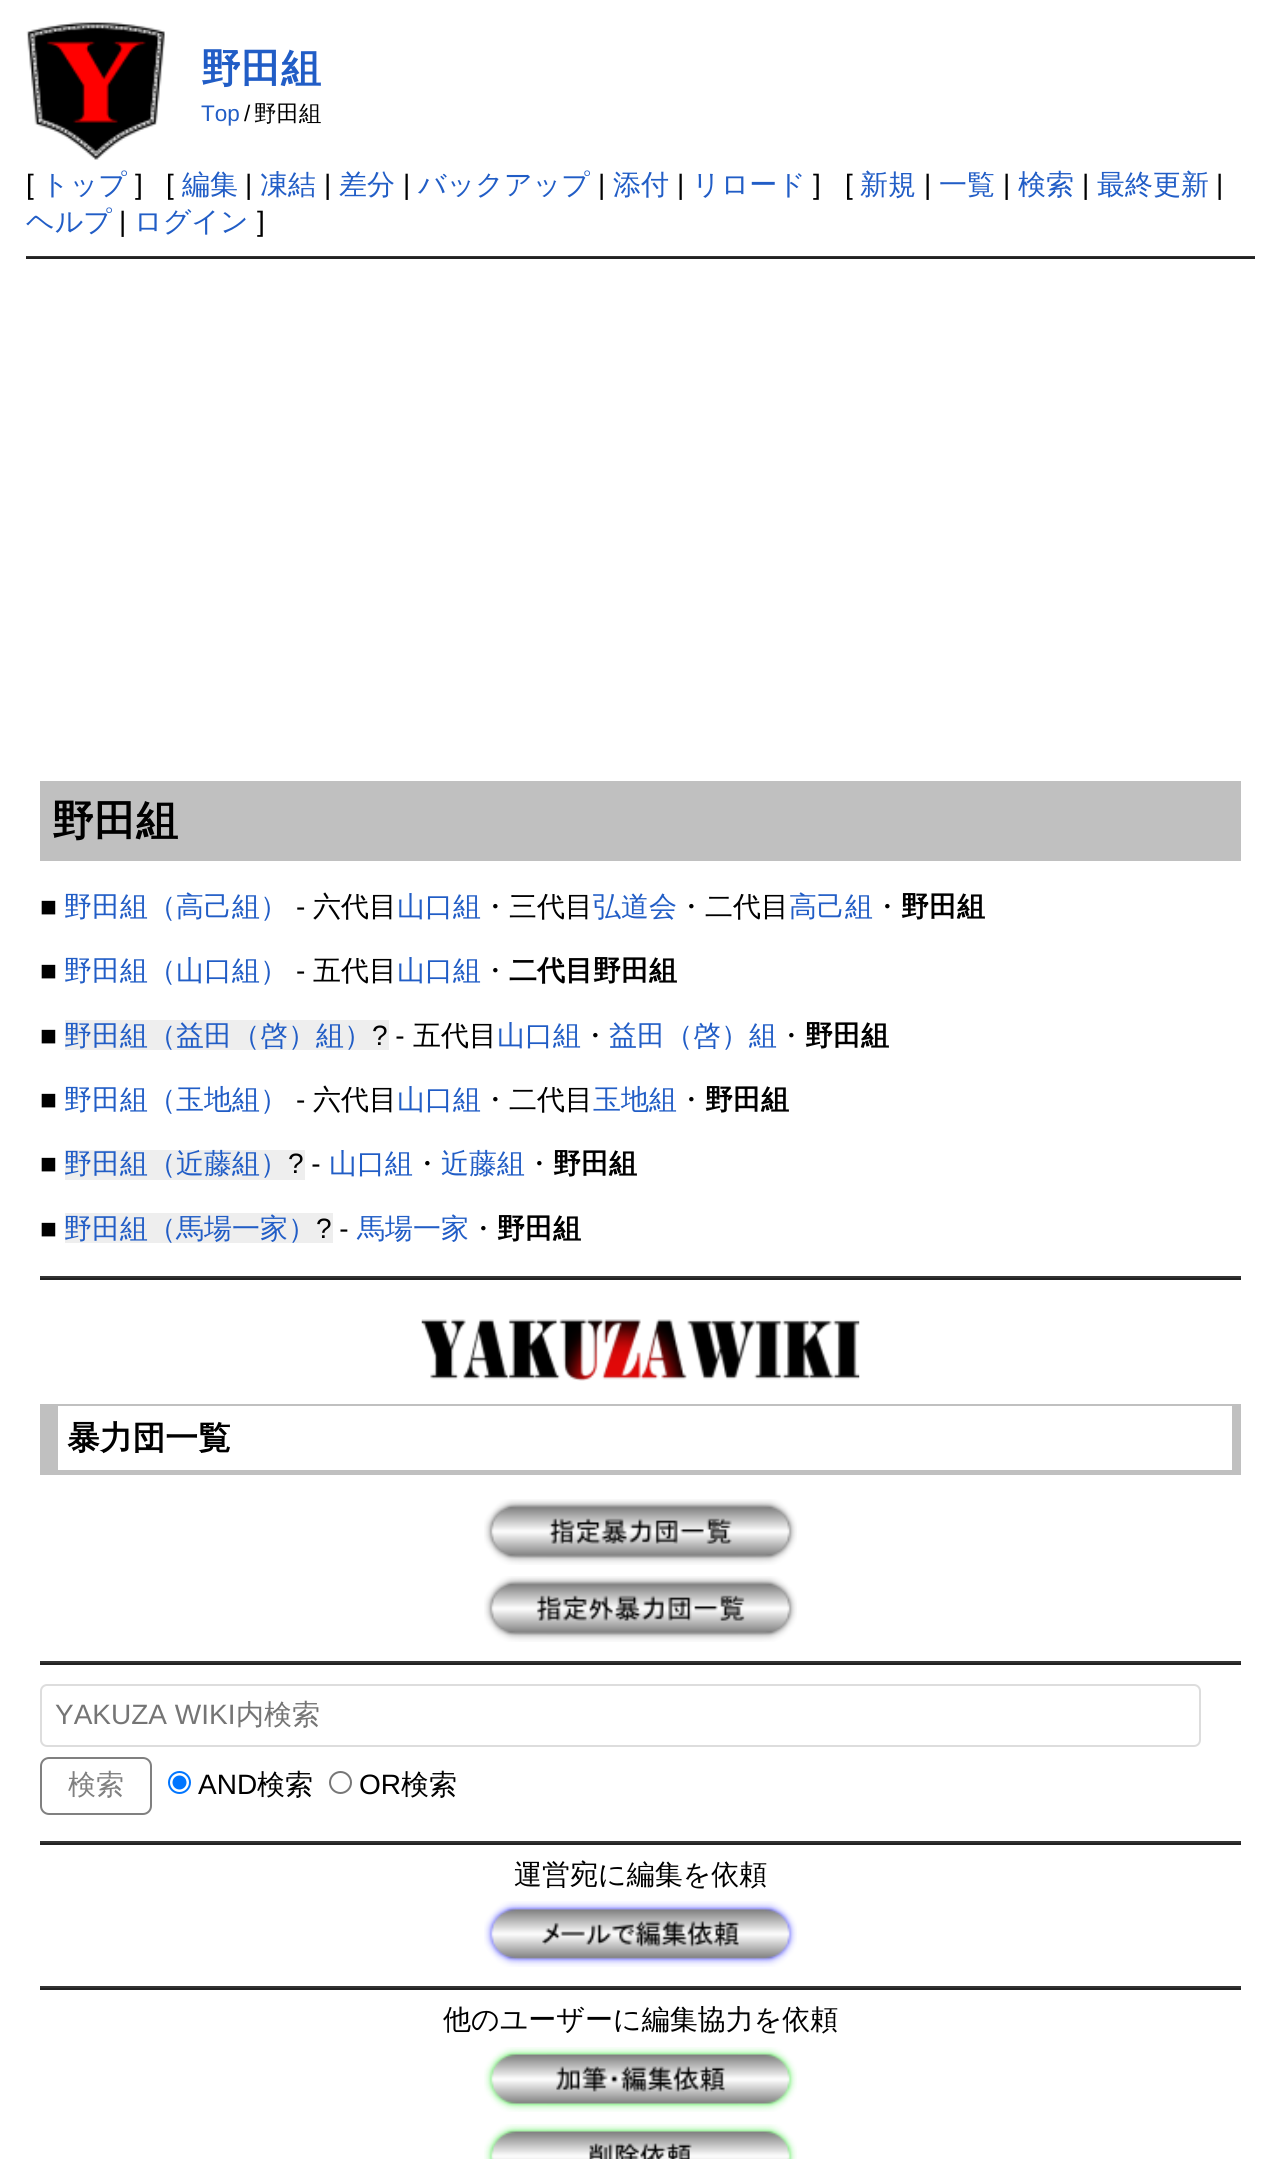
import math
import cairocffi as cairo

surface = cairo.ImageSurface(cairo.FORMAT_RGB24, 1280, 2159)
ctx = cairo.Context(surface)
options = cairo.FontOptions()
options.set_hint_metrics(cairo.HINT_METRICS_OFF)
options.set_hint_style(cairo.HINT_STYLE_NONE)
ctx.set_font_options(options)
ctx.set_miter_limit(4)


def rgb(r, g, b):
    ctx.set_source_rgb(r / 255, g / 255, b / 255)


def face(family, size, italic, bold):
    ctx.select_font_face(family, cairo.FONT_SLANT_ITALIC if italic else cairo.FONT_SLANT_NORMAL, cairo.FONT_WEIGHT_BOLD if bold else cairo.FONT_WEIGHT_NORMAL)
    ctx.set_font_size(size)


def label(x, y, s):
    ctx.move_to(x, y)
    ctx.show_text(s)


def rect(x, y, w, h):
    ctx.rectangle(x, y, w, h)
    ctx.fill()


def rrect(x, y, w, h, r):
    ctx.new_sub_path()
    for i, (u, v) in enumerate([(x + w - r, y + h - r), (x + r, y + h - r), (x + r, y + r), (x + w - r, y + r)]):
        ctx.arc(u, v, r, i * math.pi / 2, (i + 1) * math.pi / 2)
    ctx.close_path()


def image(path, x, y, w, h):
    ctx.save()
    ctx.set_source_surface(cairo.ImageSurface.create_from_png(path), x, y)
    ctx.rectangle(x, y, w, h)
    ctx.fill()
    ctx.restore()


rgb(255, 255, 255)
ctx.paint()
image('image0.png', 26, 22, 139, 138)
face('WenQuanYi Zen Hei', 40, 0, 1)
rgb(33, 93, 198)
label(201, 82, '野田組')
face('Liberation Sans', 22.5, 0, 0)
label(201, 121, 'Top')
rgb(0, 0, 0)
label(244, 121, '/')
face('WenQuanYi Zen Hei Medium', 22.5, 0, 0)
label(254, 121, '野田組')
face('Liberation Sans', 28, 0, 0)
label(26, 194, '[')
face('WenQuanYi Zen Hei Medium', 28, 0, 0)
rgb(33, 93, 198)
label(41, 194, 'トップ')
face('Liberation Sans', 28, 0, 0)
rgb(0, 0, 0)
label(135, 194, ']')
label(166, 194, '[')
face('WenQuanYi Zen Hei Medium', 28, 0, 0)
rgb(33, 93, 198)
label(182, 194, '編集')
face('Liberation Sans', 28, 0, 0)
rgb(0, 0, 0)
label(245, 194, '|')
face('WenQuanYi Zen Hei Medium', 28, 0, 0)
rgb(33, 93, 198)
label(260, 194, '凍結')
face('Liberation Sans', 28, 0, 0)
rgb(0, 0, 0)
label(324, 194, '|')
face('WenQuanYi Zen Hei Medium', 28, 0, 0)
rgb(33, 93, 198)
label(339, 194, '差分')
face('Liberation Sans', 28, 0, 0)
rgb(0, 0, 0)
label(403, 194, '|')
face('WenQuanYi Zen Hei Medium', 28, 0, 0)
rgb(33, 93, 198)
label(418, 194, 'バックアップ')
face('Liberation Sans', 28, 0, 0)
rgb(0, 0, 0)
label(598, 194, '|')
face('WenQuanYi Zen Hei Medium', 28, 0, 0)
rgb(33, 93, 198)
label(613, 194, '添付')
face('Liberation Sans', 28, 0, 0)
rgb(0, 0, 0)
label(677, 194, '|')
face('WenQuanYi Zen Hei Medium', 28, 0, 0)
rgb(33, 93, 198)
label(692, 194, 'リロード')
face('Liberation Sans', 28, 0, 0)
rgb(0, 0, 0)
label(813, 194, ']')
label(845, 194, '[')
face('WenQuanYi Zen Hei Medium', 28, 0, 0)
rgb(33, 93, 198)
label(860, 194, '新規')
face('Liberation Sans', 28, 0, 0)
rgb(0, 0, 0)
label(924, 194, '|')
face('WenQuanYi Zen Hei Medium', 28, 0, 0)
rgb(33, 93, 198)
label(939, 194, '一覧')
face('Liberation Sans', 28, 0, 0)
rgb(0, 0, 0)
label(1003, 194, '|')
face('WenQuanYi Zen Hei Medium', 28, 0, 0)
rgb(33, 93, 198)
label(1018, 194, '検索')
face('Liberation Sans', 28, 0, 0)
rgb(0, 0, 0)
label(1082, 194, '|')
face('WenQuanYi Zen Hei Medium', 28, 0, 0)
rgb(33, 93, 198)
label(1097, 194, '最終更新')
face('Liberation Sans', 28, 0, 0)
rgb(0, 0, 0)
label(1216, 194, '|')
face('WenQuanYi Zen Hei Medium', 28, 0, 0)
rgb(33, 93, 198)
label(26, 231, 'ヘルプ')
face('Liberation Sans', 28, 0, 0)
rgb(0, 0, 0)
label(119, 231, '|')
face('WenQuanYi Zen Hei Medium', 28, 0, 0)
rgb(33, 93, 198)
label(134, 231, 'ログイン')
face('Liberation Sans', 28, 0, 0)
rgb(0, 0, 0)
label(257, 231, ']')
rgb(51, 51, 51)
rect(26, 256, 1229, 1)
rgb(34, 34, 34)
rect(26, 257, 1229, 2)
rgb(192, 192, 192)
rect(40, 781, 1201, 80)
face('WenQuanYi Zen Hei', 42, 0, 1)
rgb(0, 0, 0)
label(52, 835, '野田組')
face('Liberation Sans', 28, 0, 0)
label(40, 916, '■')
face('WenQuanYi Zen Hei Medium', 28, 0, 0)
rgb(33, 93, 198)
label(64, 916, '野田組（高己組）')
face('Liberation Sans', 28, 0, 0)
rgb(0, 0, 0)
label(296, 916, '-')
face('WenQuanYi Zen Hei Medium', 28, 0, 0)
label(313, 916, '六代目')
rgb(33, 93, 198)
label(397, 916, '山口組')
rgb(0, 0, 0)
label(481, 916, '・三代目')
rgb(33, 93, 198)
label(593, 916, '弘道会')
rgb(0, 0, 0)
label(677, 916, '・二代目')
rgb(33, 93, 198)
label(789, 916, '高己組')
rgb(0, 0, 0)
label(873, 916, '・')
face('WenQuanYi Zen Hei', 28, 0, 1)
label(901, 916, '野田組')
face('Liberation Sans', 28, 0, 0)
label(40, 980, '■')
face('WenQuanYi Zen Hei Medium', 28, 0, 0)
rgb(33, 93, 198)
label(64, 980, '野田組（山口組）')
face('Liberation Sans', 28, 0, 0)
rgb(0, 0, 0)
label(296, 980, '-')
face('WenQuanYi Zen Hei Medium', 28, 0, 0)
label(313, 980, '五代目')
rgb(33, 93, 198)
label(397, 980, '山口組')
rgb(0, 0, 0)
label(481, 980, '・')
face('WenQuanYi Zen Hei', 28, 0, 1)
label(509, 980, '二代目野田組')
face('Liberation Sans', 28, 0, 0)
label(40, 1045, '■')
rgb(238, 238, 238)
rect(65, 1020, 324, 30)
face('WenQuanYi Zen Hei Medium', 28, 0, 0)
rgb(33, 93, 198)
label(64, 1045, '野田組（益田（啓）組）')
face('Liberation Sans', 28, 0, 0)
rgb(0, 0, 0)
label(372, 1045, '? -')
face('WenQuanYi Zen Hei Medium', 28, 0, 0)
label(413, 1045, '五代目')
rgb(33, 93, 198)
label(497, 1045, '山口組')
rgb(0, 0, 0)
label(581, 1045, '・')
rgb(33, 93, 198)
label(609, 1045, '益田（啓）組')
rgb(0, 0, 0)
label(777, 1045, '・')
face('WenQuanYi Zen Hei', 28, 0, 1)
label(805, 1045, '野田組')
face('Liberation Sans', 28, 0, 0)
label(40, 1109, '■')
face('WenQuanYi Zen Hei Medium', 28, 0, 0)
rgb(33, 93, 198)
label(64, 1109, '野田組（玉地組）')
face('Liberation Sans', 28, 0, 0)
rgb(0, 0, 0)
label(296, 1109, '-')
face('WenQuanYi Zen Hei Medium', 28, 0, 0)
label(313, 1109, '六代目')
rgb(33, 93, 198)
label(397, 1109, '山口組')
rgb(0, 0, 0)
label(481, 1109, '・二代目')
rgb(33, 93, 198)
label(593, 1109, '玉地組')
rgb(0, 0, 0)
label(677, 1109, '・')
face('WenQuanYi Zen Hei', 28, 0, 1)
label(705, 1109, '野田組')
face('Liberation Sans', 28, 0, 0)
label(40, 1173, '■')
rgb(238, 238, 238)
rect(65, 1150, 240, 30)
face('WenQuanYi Zen Hei Medium', 28, 0, 0)
rgb(33, 93, 198)
label(64, 1173, '野田組（近藤組）')
face('Liberation Sans', 28, 0, 0)
rgb(0, 0, 0)
label(288, 1173, '? -')
face('WenQuanYi Zen Hei Medium', 28, 0, 0)
rgb(33, 93, 198)
label(329, 1173, '山口組')
rgb(0, 0, 0)
label(413, 1173, '・')
rgb(33, 93, 198)
label(441, 1173, '近藤組')
rgb(0, 0, 0)
label(525, 1173, '・')
face('WenQuanYi Zen Hei', 28, 0, 1)
label(553, 1173, '野田組')
face('Liberation Sans', 28, 0, 0)
label(40, 1238, '■')
rgb(238, 238, 238)
rect(65, 1213, 268, 30)
face('WenQuanYi Zen Hei Medium', 28, 0, 0)
rgb(33, 93, 198)
label(64, 1238, '野田組（馬場一家）')
face('Liberation Sans', 28, 0, 0)
rgb(0, 0, 0)
label(316, 1238, '? -')
face('WenQuanYi Zen Hei Medium', 28, 0, 0)
rgb(33, 93, 198)
label(357, 1238, '馬場一家')
rgb(0, 0, 0)
label(469, 1238, '・')
face('WenQuanYi Zen Hei', 28, 0, 1)
label(497, 1238, '野田組')
rgb(51, 51, 51)
rect(40, 1276, 1201, 2)
rgb(34, 34, 34)
rect(40, 1278, 1201, 2)
image('image1.png', 421, 1319, 439, 62)
rgb(192, 192, 192)
rect(58, 1404, 1174, 2)
rect(1232, 1404, 9, 66)
rect(58, 1470, 1183, 5)
rect(40, 1404, 18, 71)
face('WenQuanYi Zen Hei', 32.75, 0, 1)
rgb(0, 0, 0)
label(67, 1449, '暴力団一覧')
image('image2.png', 484, 1499, 313, 66)
image('image3.png', 484, 1576, 313, 66)
rgb(51, 51, 51)
rect(40, 1661, 1201, 2)
rgb(34, 34, 34)
rect(40, 1663, 1201, 2)
rrect(41, 1685, 1159, 61, 6)
rgb(221, 221, 221)
ctx.stroke()
face('Liberation Sans', 28, 0, 0)
rgb(117, 117, 117)
label(55, 1724, 'YAKUZA WIKI')
face('WenQuanYi Zen Hei Medium', 28, 0, 0)
label(236, 1724, '内検索')
rrect(41, 1758, 110, 56, 8)
rgb(128, 128, 128)
ctx.stroke()
label(68, 1794, '検索')
ctx.new_path()
ctx.arc(179.5, 1782.5, 10.5, 0, 2 * math.pi)
rgb(0, 117, 255)
ctx.stroke()
ctx.arc(179.5, 1782.5, 7, 0, 2 * math.pi)
ctx.fill()
face('Liberation Sans', 28, 0, 0)
rgb(0, 0, 0)
label(198, 1794, 'AND')
face('WenQuanYi Zen Hei Medium', 28, 0, 0)
label(257, 1794, '検索')
ctx.new_path()
ctx.arc(340.5, 1782.5, 10.5, 0, 2 * math.pi)
rgb(118, 118, 118)
ctx.stroke()
face('Liberation Sans', 28, 0, 0)
rgb(0, 0, 0)
label(359, 1794, 'OR')
face('WenQuanYi Zen Hei Medium', 28, 0, 0)
label(401, 1794, '検索')
rgb(51, 51, 51)
rect(40, 1841, 1201, 2)
rgb(34, 34, 34)
rect(40, 1843, 1201, 2)
rgb(0, 0, 0)
label(514, 1884, '運営宛に編集を依頼')
image('image4.png', 484, 1901, 313, 66)
rgb(51, 51, 51)
rect(40, 1986, 1201, 2)
rgb(34, 34, 34)
rect(40, 1988, 1201, 2)
rgb(0, 0, 0)
label(443, 2029, '他のユーザーに編集協力を依頼')
image('image5.png', 484, 2047, 313, 65)
image('image6.png', 484, 2124, 313, 35)
surface.write_to_png('render.png')
